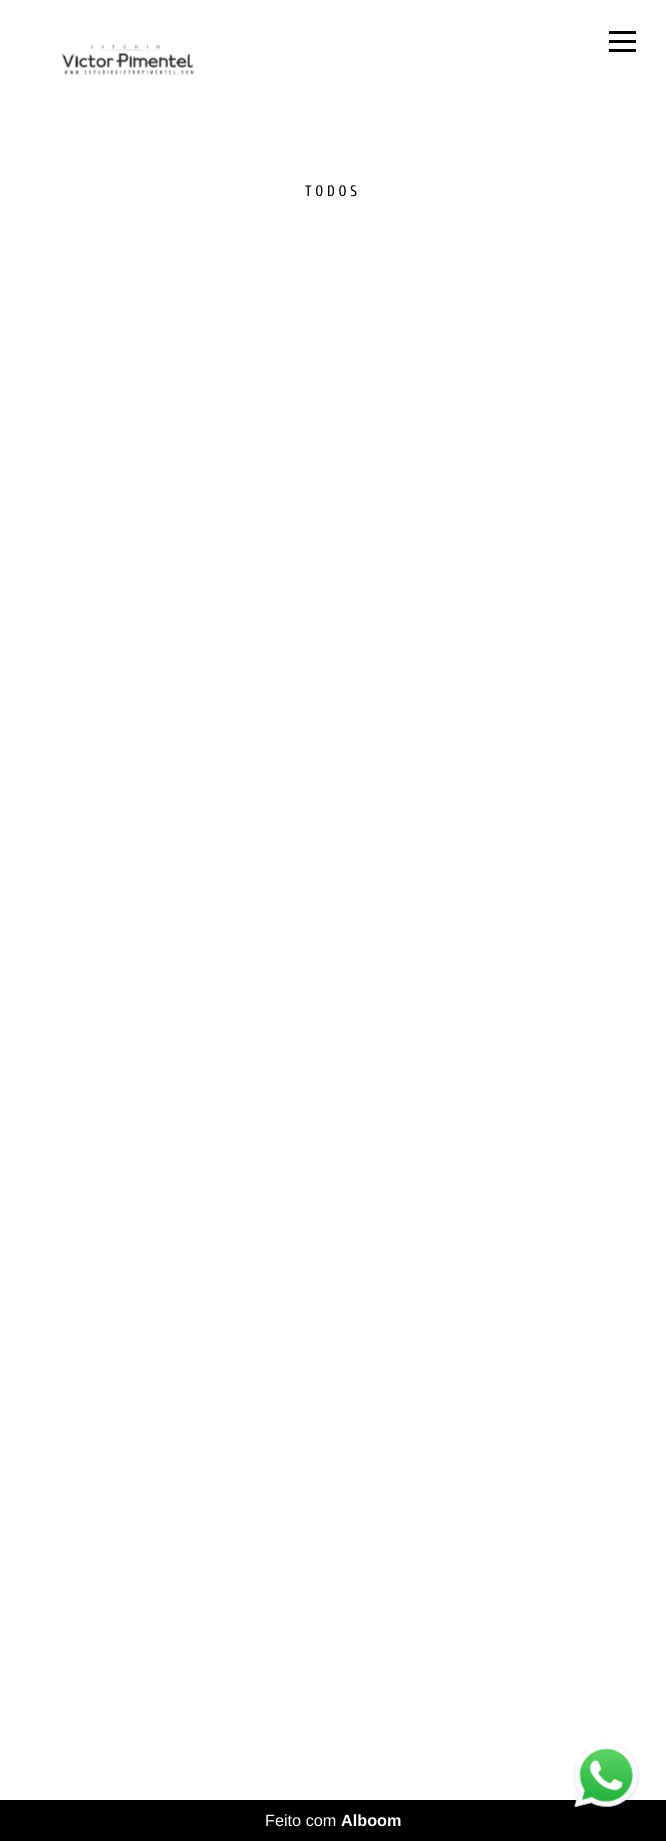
import math
import cairocffi as cairo

surface = cairo.ImageSurface(cairo.FORMAT_RGB24, 666, 1841)
ctx = cairo.Context(surface)
options = cairo.FontOptions()
options.set_hint_metrics(cairo.HINT_METRICS_OFF)
options.set_hint_style(cairo.HINT_STYLE_NONE)
ctx.set_font_options(options)
ctx.set_miter_limit(4)


def rgb(r, g, b):
    ctx.set_source_rgb(r / 255, g / 255, b / 255)


def face(family, size, italic, bold):
    ctx.select_font_face(family, cairo.FONT_SLANT_ITALIC if italic else cairo.FONT_SLANT_NORMAL, cairo.FONT_WEIGHT_BOLD if bold else cairo.FONT_WEIGHT_NORMAL)
    ctx.set_font_size(size)


def label(x, y, s):
    ctx.move_to(x, y)
    ctx.show_text(s)


def tracked(x, y, s, letter, word):
    ctx.move_to(x, y)
    for ch in s:
        ctx.show_text(ch)
        ctx.rel_move_to(letter + word * (ch == ' '), 0)


def rect(x, y, w, h):
    ctx.rectangle(x, y, w, h)
    ctx.fill()


def image(path, x, y, w, h):
    ctx.save()
    ctx.set_source_surface(cairo.ImageSurface.create_from_png(path), x, y)
    ctx.rectangle(x, y, w, h)
    ctx.fill()
    ctx.restore()


rgb(255, 255, 255)
ctx.paint()
rgb(0, 0, 0)
rect(609, 31, 27, 3)
rect(609, 40, 27, 3)
rect(609, 49, 27, 3)
image('image0.png', 61, 44, 133, 31)
face('Cuprum', 15, 0, 0)
tracked(305, 196, 'TODOS', 3.75, 0)
rect(0, 1800, 666, 41)
image('image1.png', 573, 1743, 67, 65)
face('Liberation Sans', 16.25, 0, 0)
rgb(255, 255, 255)
label(265, 1826, 'Feito com')
face('Liberation Sans', 16.25, 0, 1)
label(341, 1826, 'Alboom')
surface.write_to_png('render.png')
